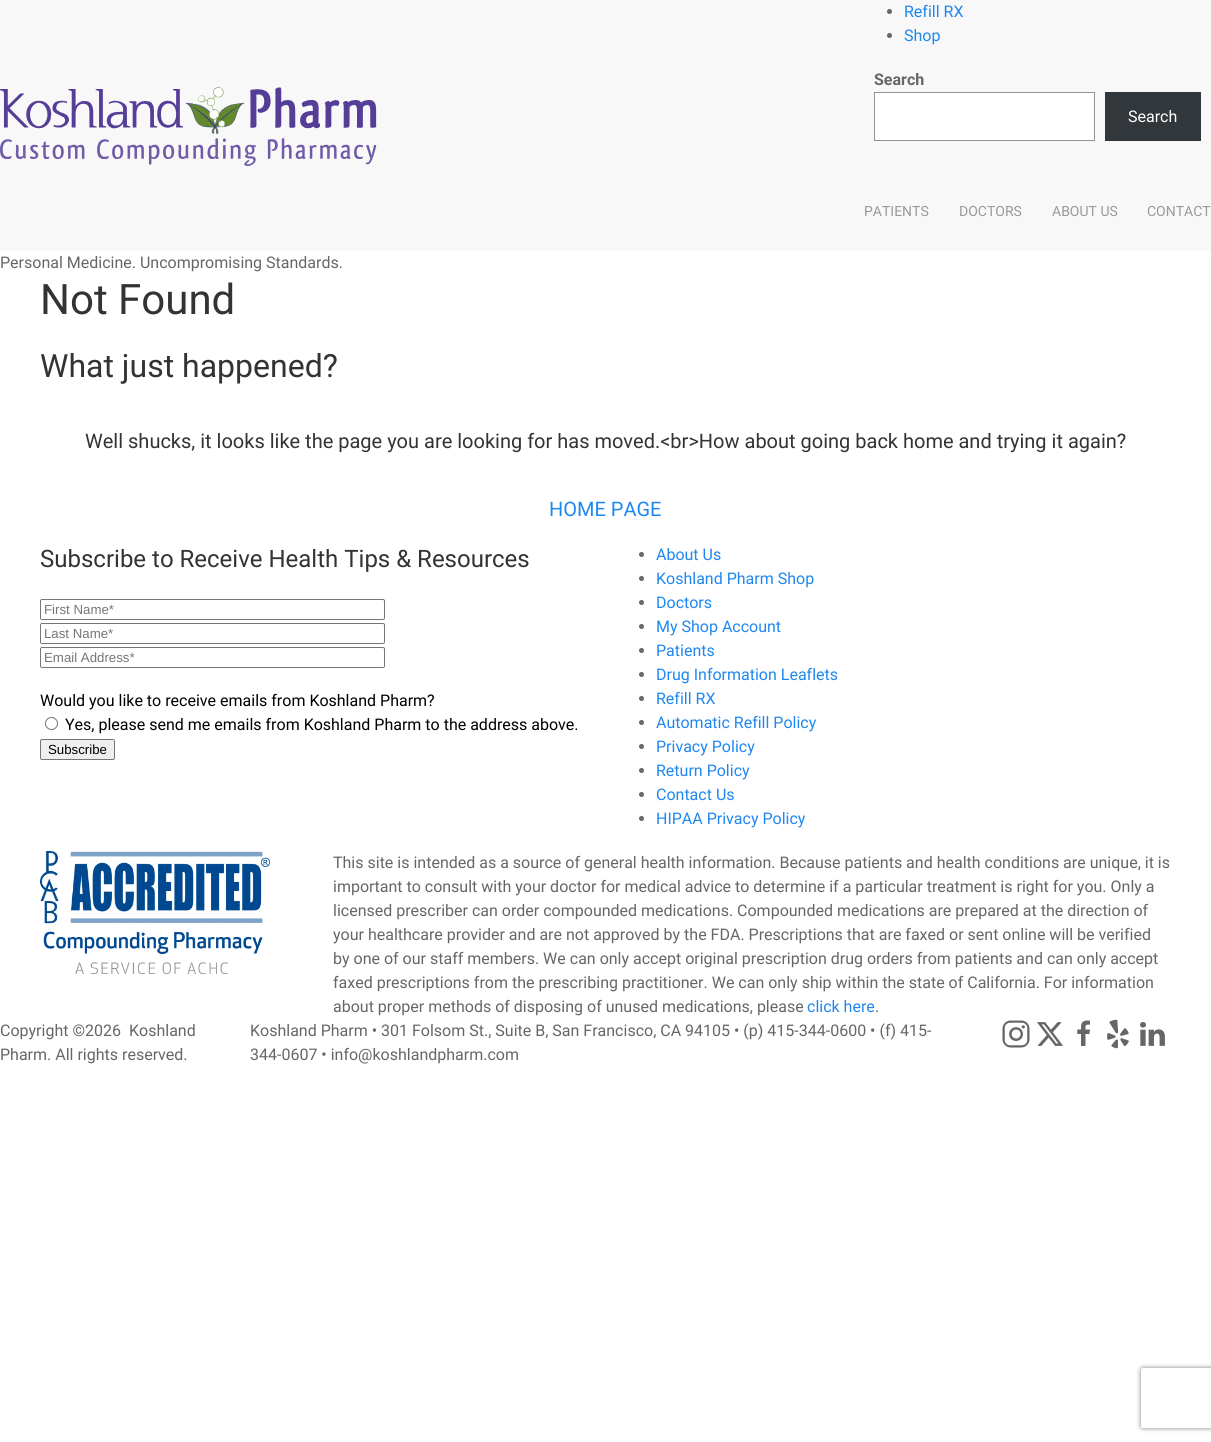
import math
import cairocffi as cairo

surface = cairo.ImageSurface(cairo.FORMAT_RGB24, 1211, 1442)
ctx = cairo.Context(surface)
options = cairo.FontOptions()
options.set_hint_metrics(cairo.HINT_METRICS_OFF)
options.set_hint_style(cairo.HINT_STYLE_NONE)
ctx.set_font_options(options)
ctx.set_miter_limit(4)


def rgb(r, g, b):
    ctx.set_source_rgb(r / 255, g / 255, b / 255)


def face(family, size, italic, bold):
    ctx.select_font_face(family, cairo.FONT_SLANT_ITALIC if italic else cairo.FONT_SLANT_NORMAL, cairo.FONT_WEIGHT_BOLD if bold else cairo.FONT_WEIGHT_NORMAL)
    ctx.set_font_size(size)


def label(x, y, s):
    ctx.move_to(x, y)
    ctx.show_text(s)


def rect(x, y, w, h):
    ctx.rectangle(x, y, w, h)
    ctx.fill()


def rrect(x, y, w, h, r):
    ctx.new_sub_path()
    for i, (u, v) in enumerate([(x + w - r, y + h - r), (x + r, y + h - r), (x + r, y + r), (x + w - r, y + r)]):
        ctx.arc(u, v, r, i * math.pi / 2, (i + 1) * math.pi / 2)
    ctx.close_path()


def soft_shadow(x, y, w, h, r, blur, alpha):
    ctx.push_group_with_content(cairo.CONTENT_ALPHA)
    ctx.set_operator(cairo.OPERATOR_SOURCE)
    for i in range(15, -16, -2):
        e = blur * i / 6
        if min(w, h) + 2 * e > 0:
            ctx.set_source_rgba(0, 0, 0, alpha * math.erfc((i - 1) / 8.5) / 2)
            rrect(x - e, y - e, w + 2 * e, h + 2 * e, max(0, min(r + e + blur * .6, min(w, h) / 2 + e)))
            ctx.fill()
    ctx.mask(ctx.pop_group())


def image(path, x, y, w, h):
    ctx.save()
    ctx.set_source_surface(cairo.ImageSurface.create_from_png(path), x, y)
    ctx.rectangle(x, y, w, h)
    ctx.fill()
    ctx.restore()


rgb(255, 255, 255)
ctx.paint()
rgb(248, 248, 248)
rect(0, 0, 1211, 251)
image('image0.png', 0, 87, 377, 79)
rgb(102, 102, 102)
ctx.arc(889.5, 11.5, 2.5, 0, 2 * math.pi)
ctx.fill()
face('Roboto', 16, 0, 0)
rgb(30, 135, 240)
label(904, 17, 'Refill RX')
rgb(102, 102, 102)
ctx.new_path()
ctx.arc(889.5, 35.5, 2.5, 0, 2 * math.pi)
ctx.fill()
rgb(30, 135, 240)
label(904, 41, 'Shop')
face('Roboto', 16, 0, 1)
rgb(102, 102, 102)
label(874, 85, 'Search')
rgb(255, 255, 255)
ctx.rectangle(874.5, 92.5, 220, 48)
ctx.fill_preserve()
rgb(148, 148, 148)
ctx.set_line_width(1)
ctx.stroke()
rgb(50, 55, 60)
rect(1105, 92, 96, 49)
face('Roboto', 16, 0, 0)
rgb(255, 255, 255)
label(1128, 122, 'Search')
face('Roboto', 14, 0, 0)
rgb(153, 153, 153)
label(864, 216, 'PATIENTS')
label(959, 216, 'DOCTORS')
label(1052, 216, 'ABOUT US')
label(1147, 216, 'CONTACT')
face('Roboto', 16, 0, 0)
rgb(102, 102, 102)
label(0, 268, 'Personal Medicine. Uncompromising Standards.')
face('Roboto', 42, 0, 0)
rgb(51, 51, 51)
label(40, 314, 'Not Found')
face('Roboto', 32, 0, 0)
label(40, 377, 'What just happened?')
face('Roboto', 20, 0, 0)
label(85, 448, 'Well shucks, it looks like the page you are looking for has moved.<br>How about going back home and trying it again?')
rgb(30, 135, 240)
label(549, 516, 'HOME PAGE')
face('Roboto', 24, 0, 0)
rgb(51, 51, 51)
label(40, 567, 'Subscribe to Receive Health Tips & Resources')
rrect(40.5, 599.5, 344, 20, 1.5)
rgb(118, 118, 118)
ctx.stroke()
face('Liberation Sans', 13.25, 0, 0)
rgb(117, 117, 117)
label(44, 614, 'First Name*')
rrect(40.5, 623.5, 344, 20, 1.5)
rgb(118, 118, 118)
ctx.stroke()
rgb(117, 117, 117)
label(44, 638, 'Last Name*')
rrect(40.5, 647.5, 344, 20, 1.5)
rgb(118, 118, 118)
ctx.stroke()
rgb(117, 117, 117)
label(44, 662, 'Email Address*')
face('Roboto', 16, 0, 0)
rgb(0, 0, 0)
label(40, 706, 'Would you like to receive emails from Koshland Pharm?')
ctx.new_path()
ctx.arc(51.5, 723.5, 6, 0, 2 * math.pi)
rgb(118, 118, 118)
ctx.stroke()
rgb(0, 0, 0)
label(65, 730, 'Yes, please send me emails from Koshland Pharm to the address above.')
rgb(239, 239, 239)
rrect(40.5, 739.5, 74, 20, 1.5)
ctx.fill_preserve()
rgb(118, 118, 118)
ctx.stroke()
face('Liberation Sans', 13.25, 0, 0)
rgb(0, 0, 0)
label(48, 754, 'Subscribe')
rgb(102, 102, 102)
ctx.new_path()
ctx.arc(641.5, 554.5, 2.5, 0, 2 * math.pi)
ctx.fill()
face('Roboto', 16, 0, 0)
rgb(30, 135, 240)
label(656, 560, 'About Us')
rgb(102, 102, 102)
ctx.new_path()
ctx.arc(641.5, 578.5, 2.5, 0, 2 * math.pi)
ctx.fill()
rgb(30, 135, 240)
label(656, 584, 'Koshland Pharm Shop')
rgb(102, 102, 102)
ctx.new_path()
ctx.arc(641.5, 602.5, 2.5, 0, 2 * math.pi)
ctx.fill()
rgb(30, 135, 240)
label(656, 608, 'Doctors')
rgb(102, 102, 102)
ctx.new_path()
ctx.arc(641.5, 626.5, 2.5, 0, 2 * math.pi)
ctx.fill()
rgb(30, 135, 240)
label(656, 632, 'My Shop Account')
rgb(102, 102, 102)
ctx.new_path()
ctx.arc(641.5, 650.5, 2.5, 0, 2 * math.pi)
ctx.fill()
rgb(30, 135, 240)
label(656, 656, 'Patients')
rgb(102, 102, 102)
ctx.new_path()
ctx.arc(641.5, 674.5, 2.5, 0, 2 * math.pi)
ctx.fill()
rgb(30, 135, 240)
label(656, 680, 'Drug Information Leaflets')
rgb(102, 102, 102)
ctx.new_path()
ctx.arc(641.5, 698.5, 2.5, 0, 2 * math.pi)
ctx.fill()
rgb(30, 135, 240)
label(656, 704, 'Refill RX')
rgb(102, 102, 102)
ctx.new_path()
ctx.arc(641.5, 722.5, 2.5, 0, 2 * math.pi)
ctx.fill()
rgb(30, 135, 240)
label(656, 728, 'Automatic Refill Policy')
rgb(102, 102, 102)
ctx.new_path()
ctx.arc(641.5, 746.5, 2.5, 0, 2 * math.pi)
ctx.fill()
rgb(30, 135, 240)
label(656, 752, 'Privacy Policy')
rgb(102, 102, 102)
ctx.new_path()
ctx.arc(641.5, 770.5, 2.5, 0, 2 * math.pi)
ctx.fill()
rgb(30, 135, 240)
label(656, 776, 'Return Policy')
rgb(102, 102, 102)
ctx.new_path()
ctx.arc(641.5, 794.5, 2.5, 0, 2 * math.pi)
ctx.fill()
rgb(30, 135, 240)
label(656, 800, 'Contact Us')
rgb(102, 102, 102)
ctx.new_path()
ctx.arc(641.5, 818.5, 2.5, 0, 2 * math.pi)
ctx.fill()
rgb(30, 135, 240)
label(656, 824, 'HIPAA Privacy Policy')
image('image1.png', 40, 851, 230, 124)
rgb(102, 102, 102)
label(333, 868, 'This site is intended as a source of general health information. Because patients and health conditions are unique, it is')
label(333, 892, 'important to consult with your doctor for medical advice to determine if a particular treatment is right for you. Only a')
label(333, 916, 'licensed prescriber can order compounded medications. Compounded medications are prepared at the direction of')
label(333, 940, 'your healthcare provider and are not approved by the FDA. Prescriptions that are faxed or sent online will be verified')
label(333, 964, 'by one of our staff members. We can only accept original prescription drug orders from patients and can only accept')
label(333, 988, 'faxed prescriptions from the prescribing practitioner. We can only ship within the state of California. For information')
label(333, 1012, 'about proper methods of disposing of unused medications, please')
rgb(30, 135, 240)
label(807, 1012, 'click here')
rgb(102, 102, 102)
label(875, 1012, '.')
label(0, 1036, 'Copyright ©2026')
label(129, 1036, 'Koshland')
label(0, 1060, 'Pharm. All rights reserved.')
label(250, 1036, 'Koshland Pharm • 301 Folsom St., Suite B, San Francisco, CA 94105 • (p) 415-344-0600 • (f) 415-')
label(250, 1060, '344-0607 • info@koshlandpharm.com')
image('image2.png', 1002, 1020, 28, 28)
image('image3.png', 1037, 1022, 26, 24)
image('image4.png', 1077, 1020, 13, 26)
image('image5.png', 1107, 1019, 22, 30)
image('image6.png', 1140, 1022, 25, 24)
ctx.save()
ctx.set_fill_rule(cairo.FILL_RULE_EVEN_ODD)
ctx.new_path()
ctx.move_to(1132, 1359)
ctx.line_to(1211, 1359)
ctx.line_to(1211, 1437)
ctx.line_to(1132, 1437)
ctx.close_path()
ctx.move_to(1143, 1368)
ctx.line_to(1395, 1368)
ctx.curve_to(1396, 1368, 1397, 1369, 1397, 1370)
ctx.line_to(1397, 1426)
ctx.curve_to(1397, 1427, 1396, 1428, 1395, 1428)
ctx.line_to(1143, 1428)
ctx.curve_to(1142, 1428, 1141, 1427, 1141, 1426)
ctx.line_to(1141, 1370)
ctx.curve_to(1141, 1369, 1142, 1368, 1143, 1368)
ctx.close_path()
ctx.clip()
rgb(128, 128, 128)
soft_shadow(1141, 1368, 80, 60, 2, 2.5, 1)
ctx.restore()
surface.write_to_png('render.png')
